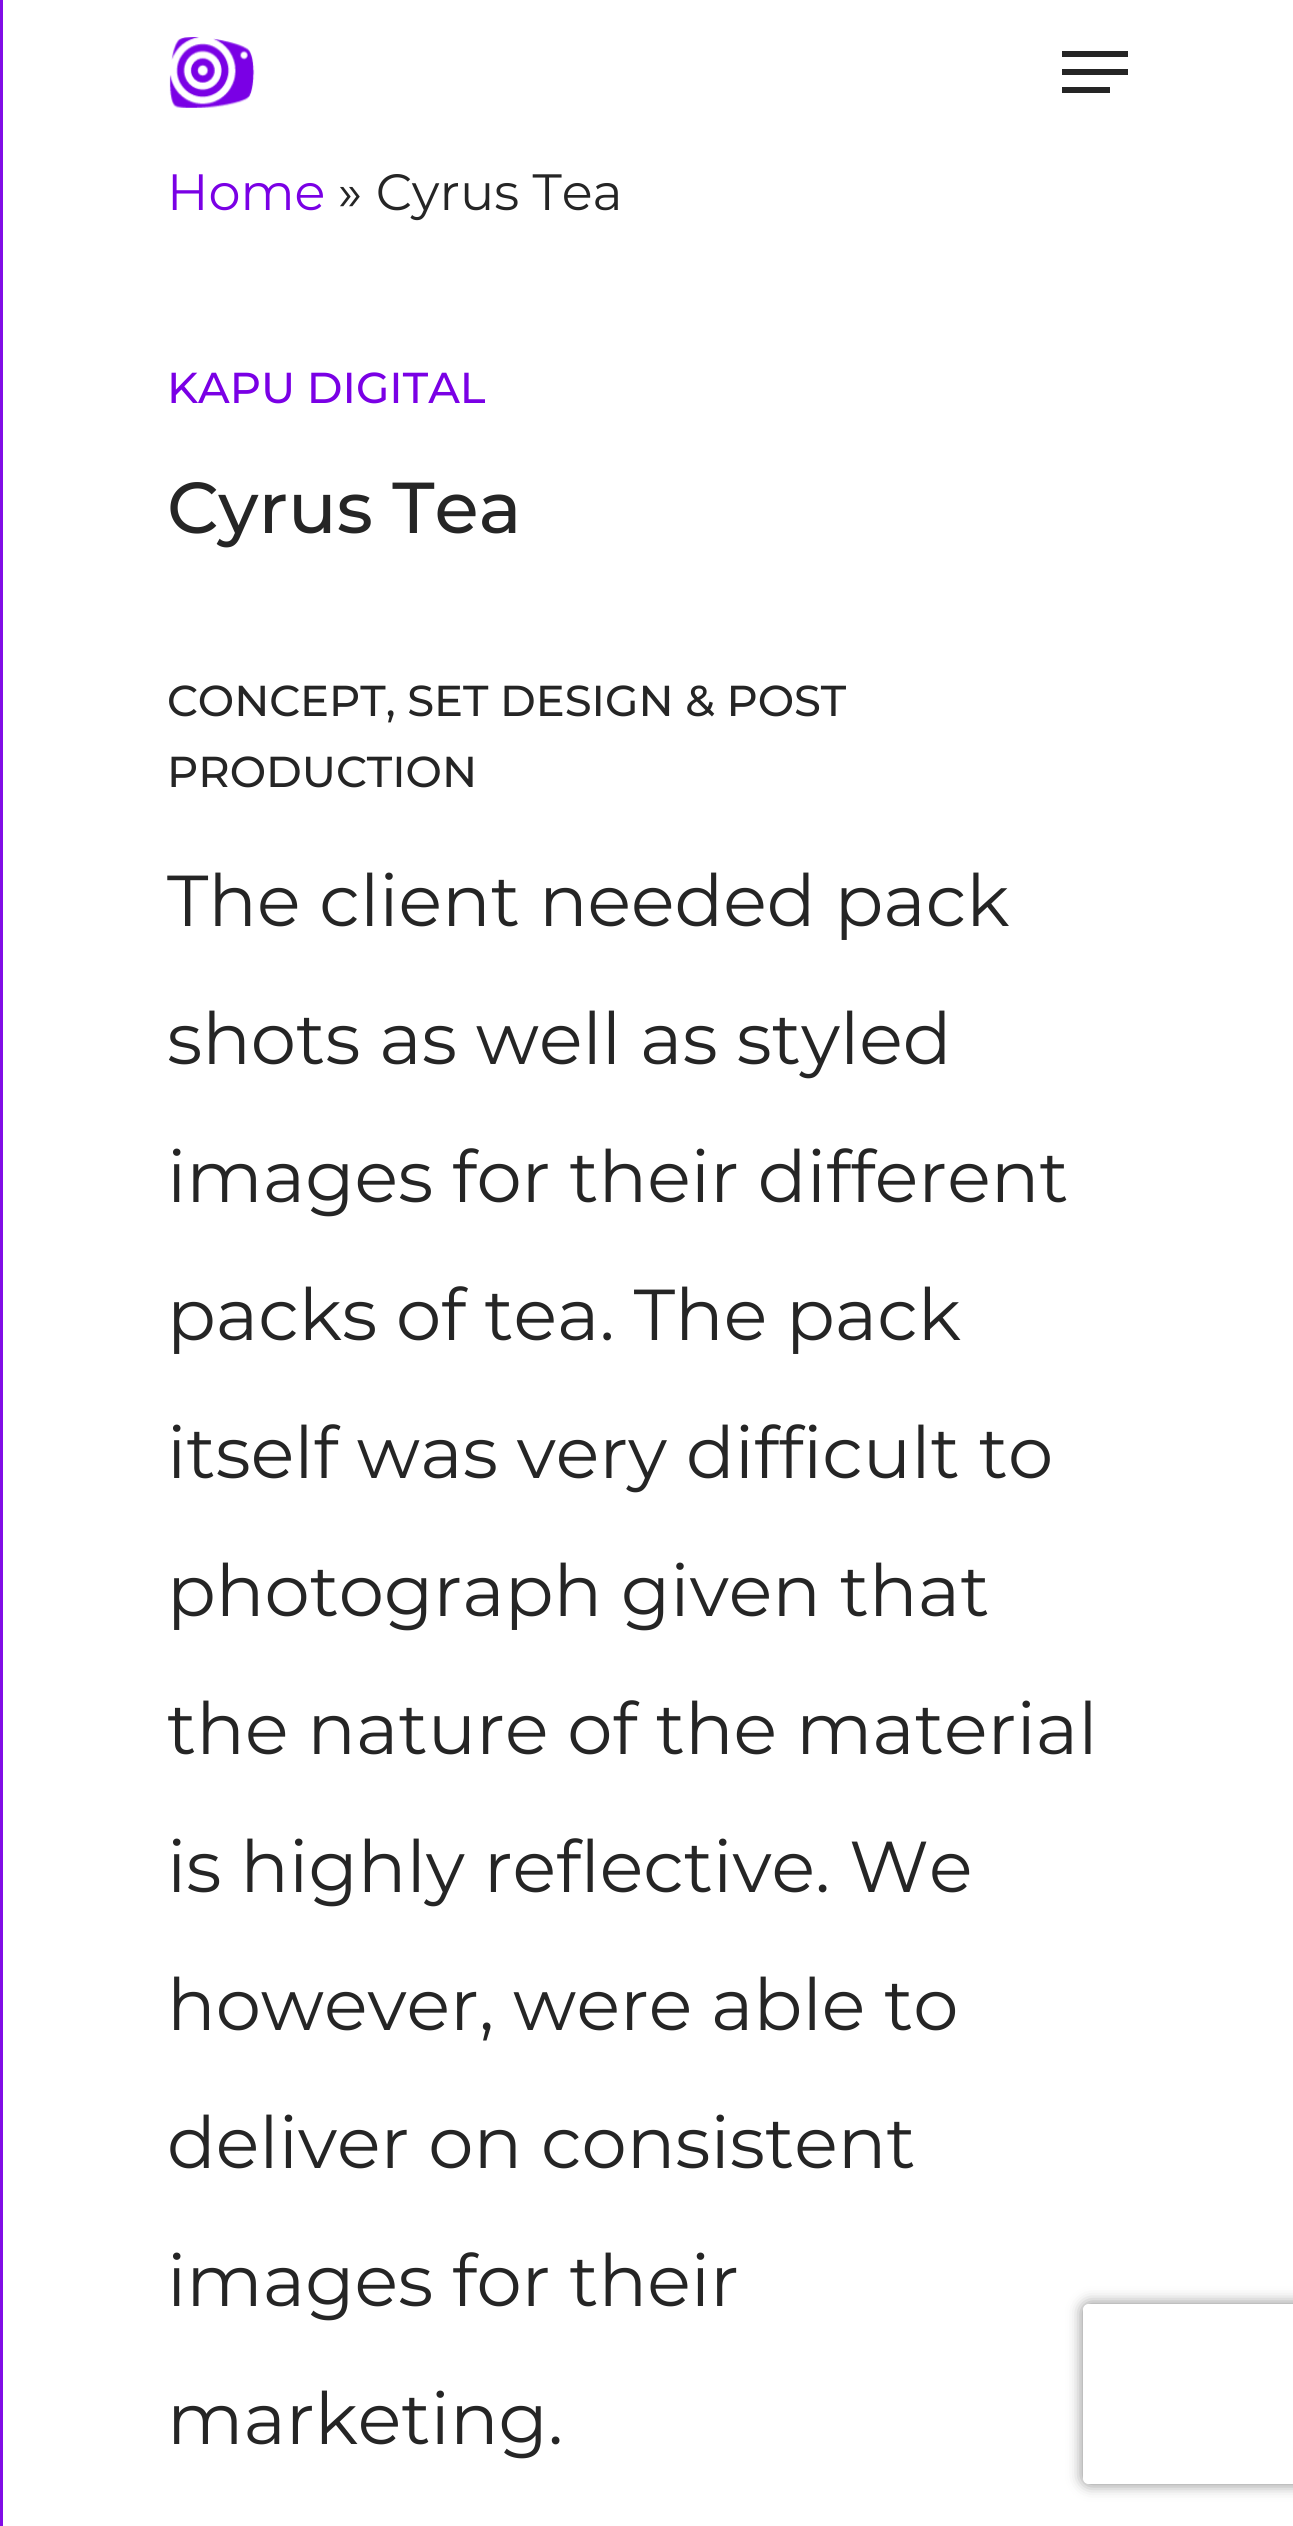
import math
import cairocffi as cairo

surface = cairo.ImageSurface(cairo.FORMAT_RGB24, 1293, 2526)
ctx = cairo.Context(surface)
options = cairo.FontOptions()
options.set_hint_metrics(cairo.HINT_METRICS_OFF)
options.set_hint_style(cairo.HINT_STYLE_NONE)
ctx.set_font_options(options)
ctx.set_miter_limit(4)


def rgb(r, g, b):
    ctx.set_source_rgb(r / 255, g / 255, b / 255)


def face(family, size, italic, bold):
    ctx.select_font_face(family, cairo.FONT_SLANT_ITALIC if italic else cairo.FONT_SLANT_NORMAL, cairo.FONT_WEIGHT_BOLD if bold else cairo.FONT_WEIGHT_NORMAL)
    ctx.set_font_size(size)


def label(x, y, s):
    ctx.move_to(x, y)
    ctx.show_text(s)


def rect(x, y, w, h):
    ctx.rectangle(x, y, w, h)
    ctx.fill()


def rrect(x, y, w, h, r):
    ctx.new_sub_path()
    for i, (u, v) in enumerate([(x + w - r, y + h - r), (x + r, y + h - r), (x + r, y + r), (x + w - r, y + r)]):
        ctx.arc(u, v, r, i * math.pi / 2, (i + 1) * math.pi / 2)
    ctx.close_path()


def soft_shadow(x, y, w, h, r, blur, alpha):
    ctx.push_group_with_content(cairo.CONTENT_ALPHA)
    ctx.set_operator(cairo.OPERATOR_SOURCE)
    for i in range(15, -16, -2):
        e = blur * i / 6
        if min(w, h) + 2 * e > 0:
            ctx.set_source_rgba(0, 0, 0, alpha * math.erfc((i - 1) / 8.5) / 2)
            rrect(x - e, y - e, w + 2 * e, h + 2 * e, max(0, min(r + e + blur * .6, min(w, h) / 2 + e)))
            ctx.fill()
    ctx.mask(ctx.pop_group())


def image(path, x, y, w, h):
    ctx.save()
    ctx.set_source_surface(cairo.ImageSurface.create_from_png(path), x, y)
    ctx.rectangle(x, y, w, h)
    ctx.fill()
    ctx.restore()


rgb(255, 255, 255)
ctx.paint()
rgb(129, 13, 230)
rect(0, 0, 3, 2526)
image('image0.png', 169, 37, 86, 71)
rgb(37, 37, 37)
rect(1062, 51, 66, 6)
rect(1062, 87, 48, 6)
rect(1062, 69, 66, 6)
face('Montserrat', 51, 0, 0)
rgb(122, 0, 229)
label(167, 210, 'Home')
rgb(37, 37, 37)
label(338, 210, '» Cyrus Tea')
face('Montserrat Medium', 43.25, 0, 0)
rgb(122, 0, 229)
label(167, 403, 'KAPU DIGITAL')
face('Montserrat Medium', 72, 0, 0)
rgb(37, 37, 37)
label(167, 533, 'Cyrus Tea')
face('Montserrat Medium', 43.25, 0, 0)
label(167, 716, 'CONCEPT, SET DESIGN & POST')
label(167, 787, 'PRODUCTION')
face('Montserrat', 72, 0, 0)
label(167, 926, 'The client needed pack')
label(167, 1064, 'shots as well as styled')
label(167, 1202, 'images for their different')
label(167, 1340, 'packs of tea. The pack')
label(167, 1478, 'itself was very difficult to')
label(167, 1616, 'photograph given that')
label(167, 1754, 'the nature of the material')
label(167, 1892, 'is highly reflective. We')
label(167, 2030, 'however, were able to')
label(167, 2168, 'deliver on consistent')
label(167, 2306, 'images for their')
label(167, 2444, 'marketing.')
ctx.save()
ctx.set_fill_rule(cairo.FILL_RULE_EVEN_ODD)
ctx.new_path()
ctx.move_to(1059, 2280)
ctx.line_to(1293, 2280)
ctx.line_to(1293, 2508)
ctx.line_to(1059, 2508)
ctx.close_path()
ctx.move_to(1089, 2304)
ctx.line_to(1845, 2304)
ctx.curve_to(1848.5, 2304, 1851, 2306.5, 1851, 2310)
ctx.line_to(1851, 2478)
ctx.curve_to(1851, 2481.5, 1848.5, 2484, 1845, 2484)
ctx.line_to(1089, 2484)
ctx.curve_to(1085.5, 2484, 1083, 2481.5, 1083, 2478)
ctx.line_to(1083, 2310)
ctx.curve_to(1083, 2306.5, 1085.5, 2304, 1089, 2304)
ctx.close_path()
ctx.clip()
rgb(128, 128, 128)
soft_shadow(1083, 2304, 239, 180, 6, 7.5, 1)
ctx.restore()
surface.write_to_png('render.png')
